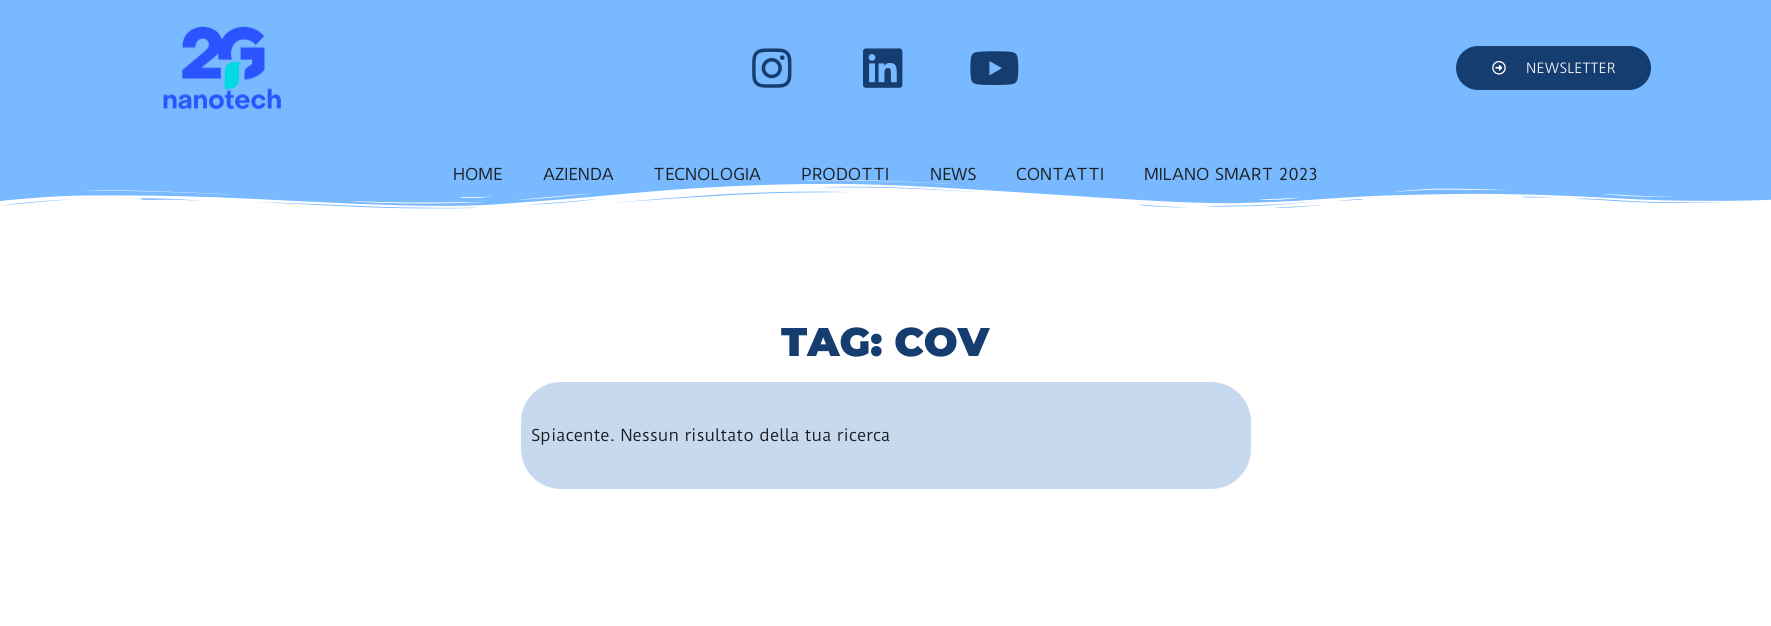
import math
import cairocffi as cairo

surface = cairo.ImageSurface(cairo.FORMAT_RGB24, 1771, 626)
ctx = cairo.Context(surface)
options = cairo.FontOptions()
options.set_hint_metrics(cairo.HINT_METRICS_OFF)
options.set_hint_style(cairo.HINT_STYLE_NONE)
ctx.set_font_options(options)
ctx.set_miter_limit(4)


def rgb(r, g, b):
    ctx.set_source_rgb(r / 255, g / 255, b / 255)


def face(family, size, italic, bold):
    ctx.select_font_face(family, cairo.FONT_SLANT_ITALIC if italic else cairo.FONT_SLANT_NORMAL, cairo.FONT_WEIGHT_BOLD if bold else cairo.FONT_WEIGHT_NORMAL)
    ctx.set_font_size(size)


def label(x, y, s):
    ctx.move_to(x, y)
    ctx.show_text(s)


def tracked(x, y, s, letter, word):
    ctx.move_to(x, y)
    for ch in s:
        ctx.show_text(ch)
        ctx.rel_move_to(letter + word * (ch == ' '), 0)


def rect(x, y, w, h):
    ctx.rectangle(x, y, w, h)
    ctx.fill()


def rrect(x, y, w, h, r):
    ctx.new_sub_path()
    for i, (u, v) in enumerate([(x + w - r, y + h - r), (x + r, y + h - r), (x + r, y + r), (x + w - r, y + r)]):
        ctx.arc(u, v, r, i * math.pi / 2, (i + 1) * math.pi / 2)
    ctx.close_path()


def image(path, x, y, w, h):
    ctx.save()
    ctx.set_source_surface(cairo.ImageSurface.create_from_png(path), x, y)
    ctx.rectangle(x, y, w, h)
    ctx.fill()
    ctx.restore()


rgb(255, 255, 255)
ctx.paint()
rgb(121, 185, 255)
rect(0, 0, 1771, 209)
image('image0.png', 163, 26, 118, 84)
image('image1.png', 752, 48, 40, 40)
image('image2.png', 863, 48, 40, 40)
image('image3.png', 970, 51, 49, 34)
rgb(21, 61, 112)
rrect(1456, 46, 195, 44, 22)
ctx.fill()
image('image4.png', 1492, 61, 14, 14)
face('NanumGothic', 14, 0, 0)
rgb(255, 255, 255)
tracked(1526, 73, 'NEWSLETTER', 0.25, 0)
image('image5.png', 0, 179, 1771, 33)
face('Duru Sans', 16, 0, 0)
rgb(27, 30, 30)
label(453, 180, 'HOME')
label(543, 180, 'AZIENDA')
label(653, 180, 'TECNOLOGIA')
label(801, 180, 'PRODOTTI')
label(930, 180, 'NEWS')
label(1016, 180, 'CONTATTI')
label(1144, 180, 'MILANO SMART 2023')
face('Montserrat Black', 40, 0, 0)
rgb(21, 61, 112)
label(781, 356, 'TAG: COV')
rgb(198, 217, 239)
rrect(521, 382, 730, 107, 40)
ctx.fill()
face('Duru Sans', 16, 0, 0)
rgb(27, 30, 30)
label(531, 441, 'Spiacente. Nessun risultato della tua ricerca')
surface.write_to_png('render.png')
